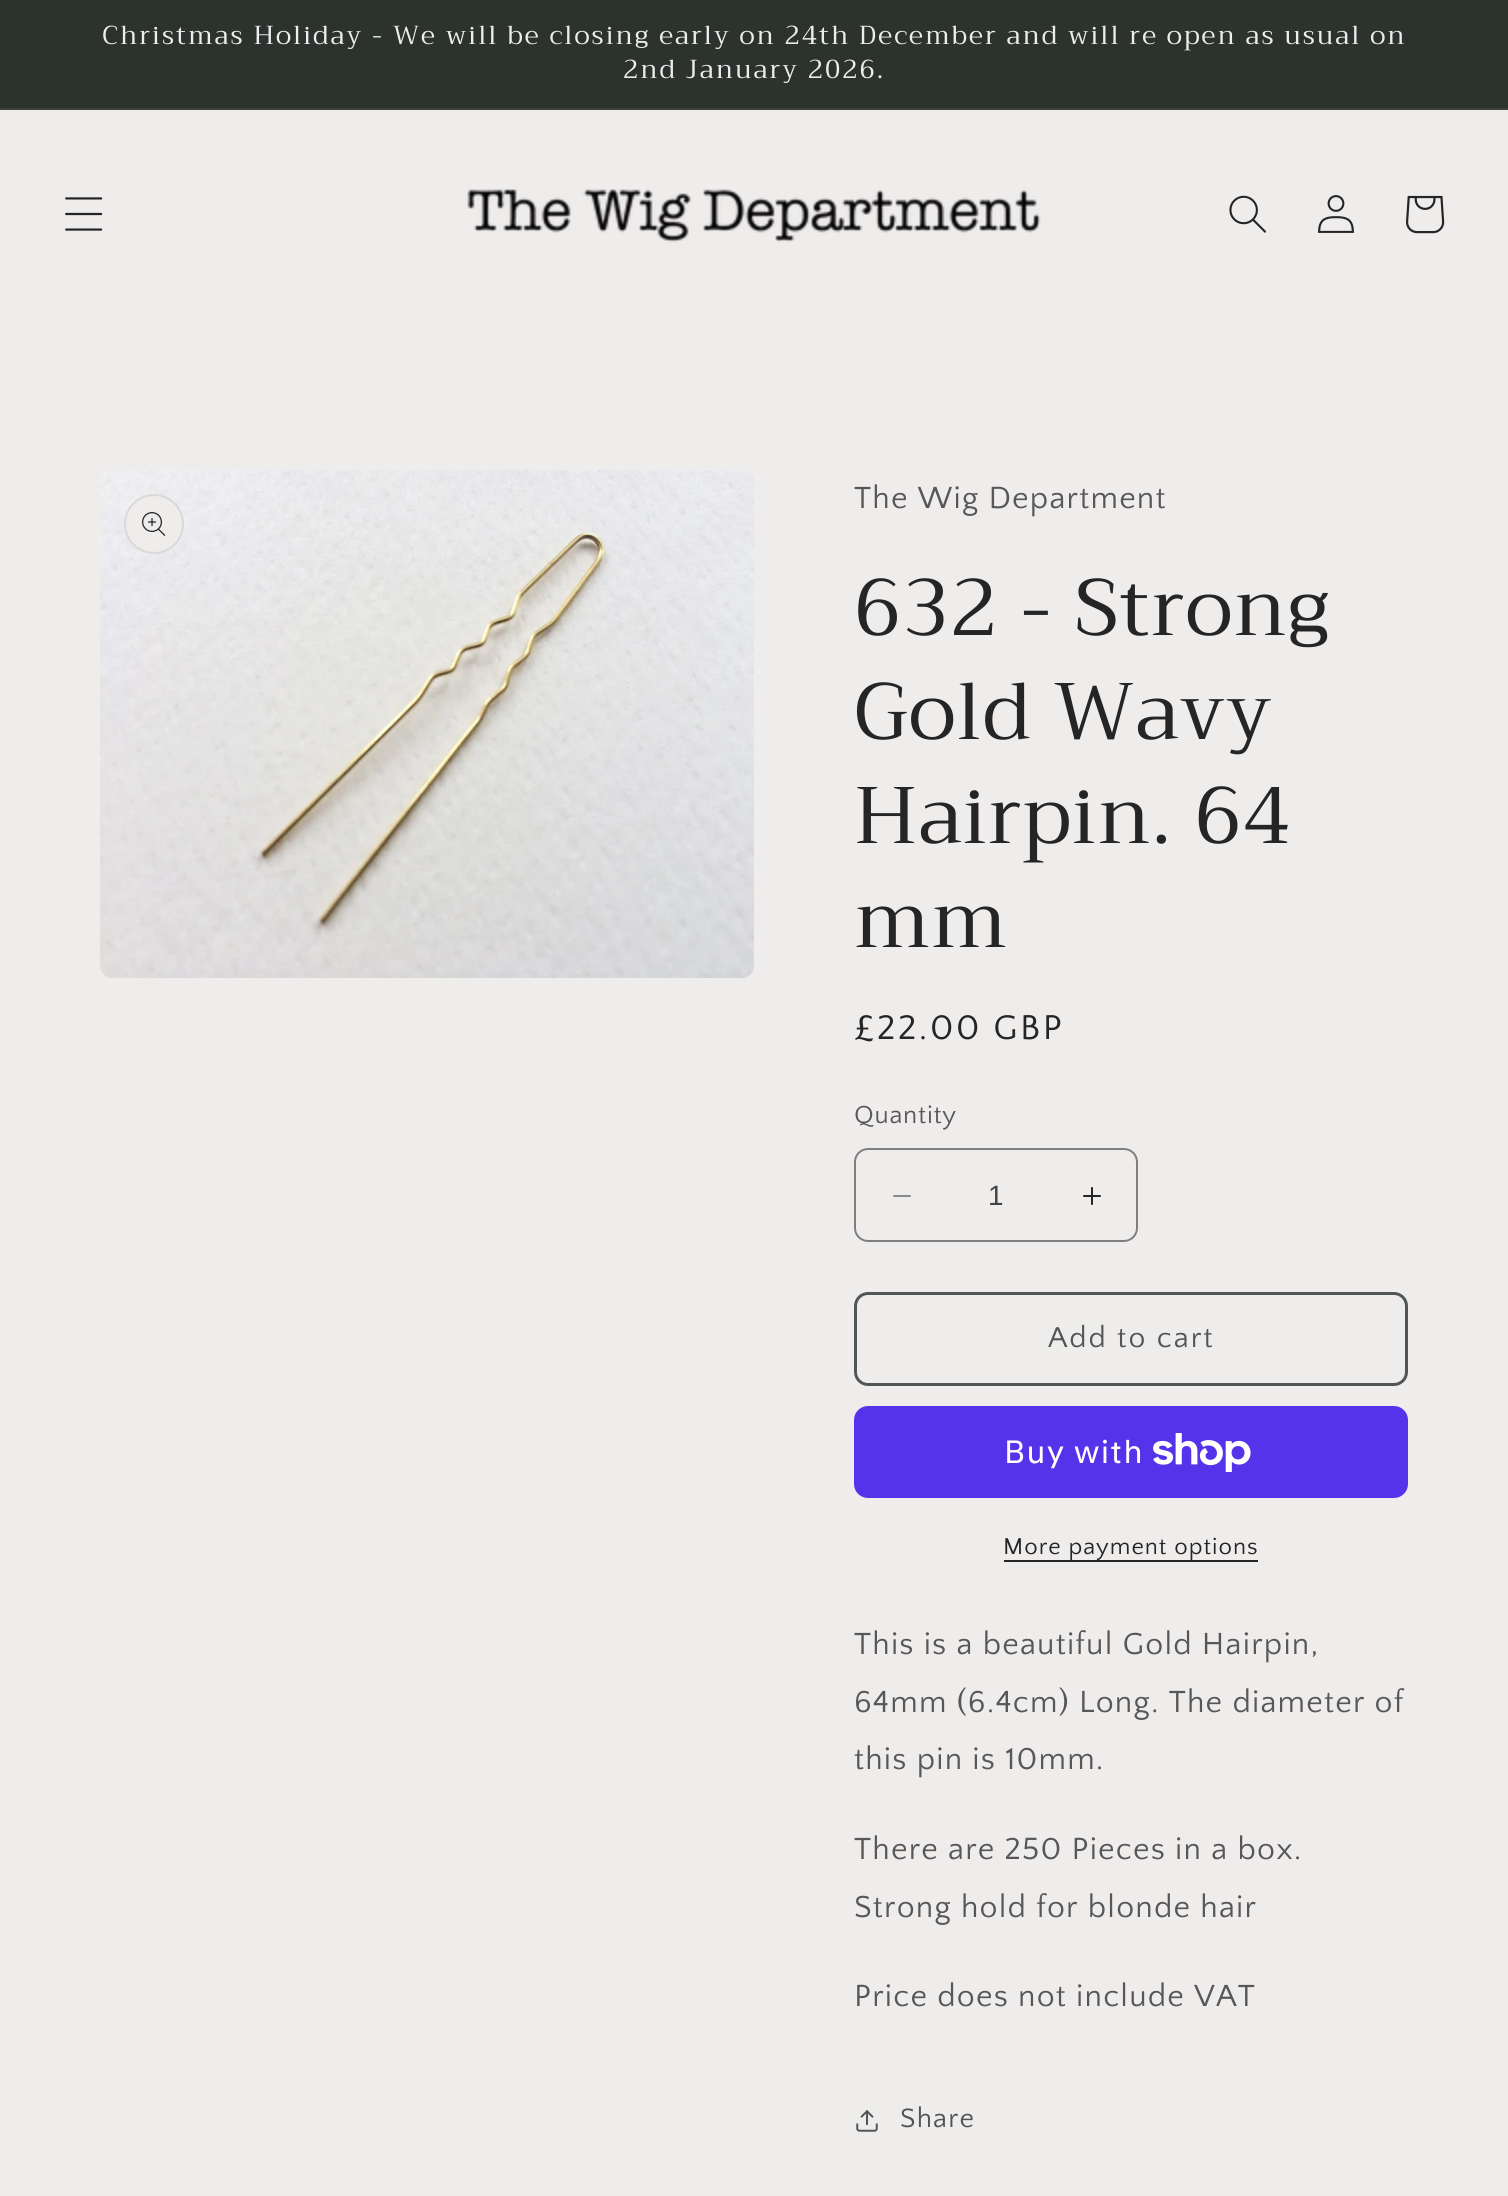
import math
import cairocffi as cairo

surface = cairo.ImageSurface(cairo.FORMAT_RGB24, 1508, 2196)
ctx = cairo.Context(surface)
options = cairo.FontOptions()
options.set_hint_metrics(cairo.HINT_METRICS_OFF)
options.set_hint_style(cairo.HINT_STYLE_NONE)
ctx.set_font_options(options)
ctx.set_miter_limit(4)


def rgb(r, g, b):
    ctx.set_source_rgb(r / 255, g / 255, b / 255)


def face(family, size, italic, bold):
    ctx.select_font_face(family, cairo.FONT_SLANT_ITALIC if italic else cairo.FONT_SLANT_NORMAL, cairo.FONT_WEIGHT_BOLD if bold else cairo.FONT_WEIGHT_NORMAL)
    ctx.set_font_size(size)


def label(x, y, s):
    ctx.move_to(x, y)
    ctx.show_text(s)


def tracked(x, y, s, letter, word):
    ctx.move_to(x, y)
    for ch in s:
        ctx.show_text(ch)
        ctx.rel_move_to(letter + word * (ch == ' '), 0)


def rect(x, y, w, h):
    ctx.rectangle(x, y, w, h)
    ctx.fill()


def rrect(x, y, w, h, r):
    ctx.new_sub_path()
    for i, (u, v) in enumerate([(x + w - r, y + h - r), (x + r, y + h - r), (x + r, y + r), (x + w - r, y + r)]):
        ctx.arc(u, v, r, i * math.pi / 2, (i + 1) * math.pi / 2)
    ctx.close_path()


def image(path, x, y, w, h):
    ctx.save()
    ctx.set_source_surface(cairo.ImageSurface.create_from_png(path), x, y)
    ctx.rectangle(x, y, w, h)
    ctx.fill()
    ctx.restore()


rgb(239, 236, 236)
ctx.paint()
rgb(44, 51, 47)
rect(0, 0, 1508, 108)
rgb(60, 66, 62)
rect(0, 108, 1508, 2)
face('Trirong', 26, 0, 0)
rgb(239, 236, 236)
tracked(102, 44, 'Christmas Holiday - We will be closing early on 24th December and will re open as usual on', 2, 0)
tracked(623, 78, '2nd January 2026.', 2, 0)
image('image0.png', 65, 197, 38, 34)
image('image1.png', 467, 189, 574, 54)
image('image2.png', 1229, 195, 37, 38)
image('image3.png', 1318, 195, 36, 38)
image('image4.png', 1406, 195, 39, 39)
image('image5.png', 100, 470, 654, 508)
ctx.arc(154, 524, 30, 0, 2 * math.pi)
ctx.fill()
ctx.arc(154, 524, 29, 0, 2 * math.pi)
ctx.set_source_rgba(0.145, 0.145, 0.145, 0.1)
ctx.stroke()
image('image6.png', 142, 512, 24, 24)
face('Quattrocento Sans', 32, 0, 0)
rgb(88, 87, 87)
tracked(854, 508, 'The Wig Department', 1.2, 0)
face('Trirong', 80, 0, 0)
rgb(37, 37, 37)
tracked(854, 635, '632 - Strong', 1.2, 0)
tracked(854, 739, 'Gold Wavy', 1.2, 0)
tracked(854, 843, 'Hairpin. 64', 1.2, 0)
tracked(854, 947, 'mm', 1.2, 0)
face('Quattrocento Sans', 36, 0, 0)
tracked(854, 1039, '£22.00 GBP', 2.6, 0)
face('Quattrocento Sans', 26, 0, 0)
rgb(88, 87, 87)
tracked(854, 1123, 'Quantity', 0.75, 0)
image('image7.png', 893, 1195, 18, 2)
image('image8.png', 1083, 1187, 18, 18)
rrect(855, 1149, 282, 92, 13)
rgb(128, 127, 127)
ctx.stroke()
face('Liberation Sans', 28, 0, 0)
rgb(67, 67, 67)
label(988, 1205, '1')
rrect(855.5, 1293.5, 551, 91, 12.5)
rgb(80, 86, 85)
ctx.set_line_width(3)
ctx.stroke()
face('Quattrocento Sans', 30, 0, 0)
tracked(1048, 1347, 'Add to cart', 2, 0)
rgb(84, 51, 235)
rrect(854, 1406, 554, 92, 14)
ctx.fill()
face('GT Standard', 32, 0, 0)
rgb(255, 255, 255)
tracked(1004, 1463, 'Buy with', 1.2, 0)
image('image9.png', 1153, 1433, 98, 39)
rgb(37, 37, 37)
rect(1004, 1560, 254, 2)
face('Quattrocento Sans', 24, 0, 0)
tracked(1003, 1554, 'More payment options', 1, 0)
face('Quattrocento Sans', 32, 0, 0)
rgb(88, 87, 87)
tracked(854, 1654, 'This is a beautiful Gold Hairpin,', 1.2, 0)
tracked(854, 1712, '64mm (6.4cm) Long. The diameter of', 1.2, 0)
tracked(854, 1769, 'this pin is 10mm.', 1.2, 0)
tracked(854, 1859, 'There are 250 Pieces in a box.', 1.2, 0)
tracked(854, 1917, 'Strong hold for blonde hair', 1.2, 0)
tracked(854, 2006, 'Price does not include VAT', 1.2, 0)
image('image10.png', 856, 2110, 22, 22)
face('Quattrocento Sans', 28, 0, 0)
rgb(80, 86, 85)
tracked(900, 2127, 'Share', 1.2, 0)
surface.write_to_png('render.png')
